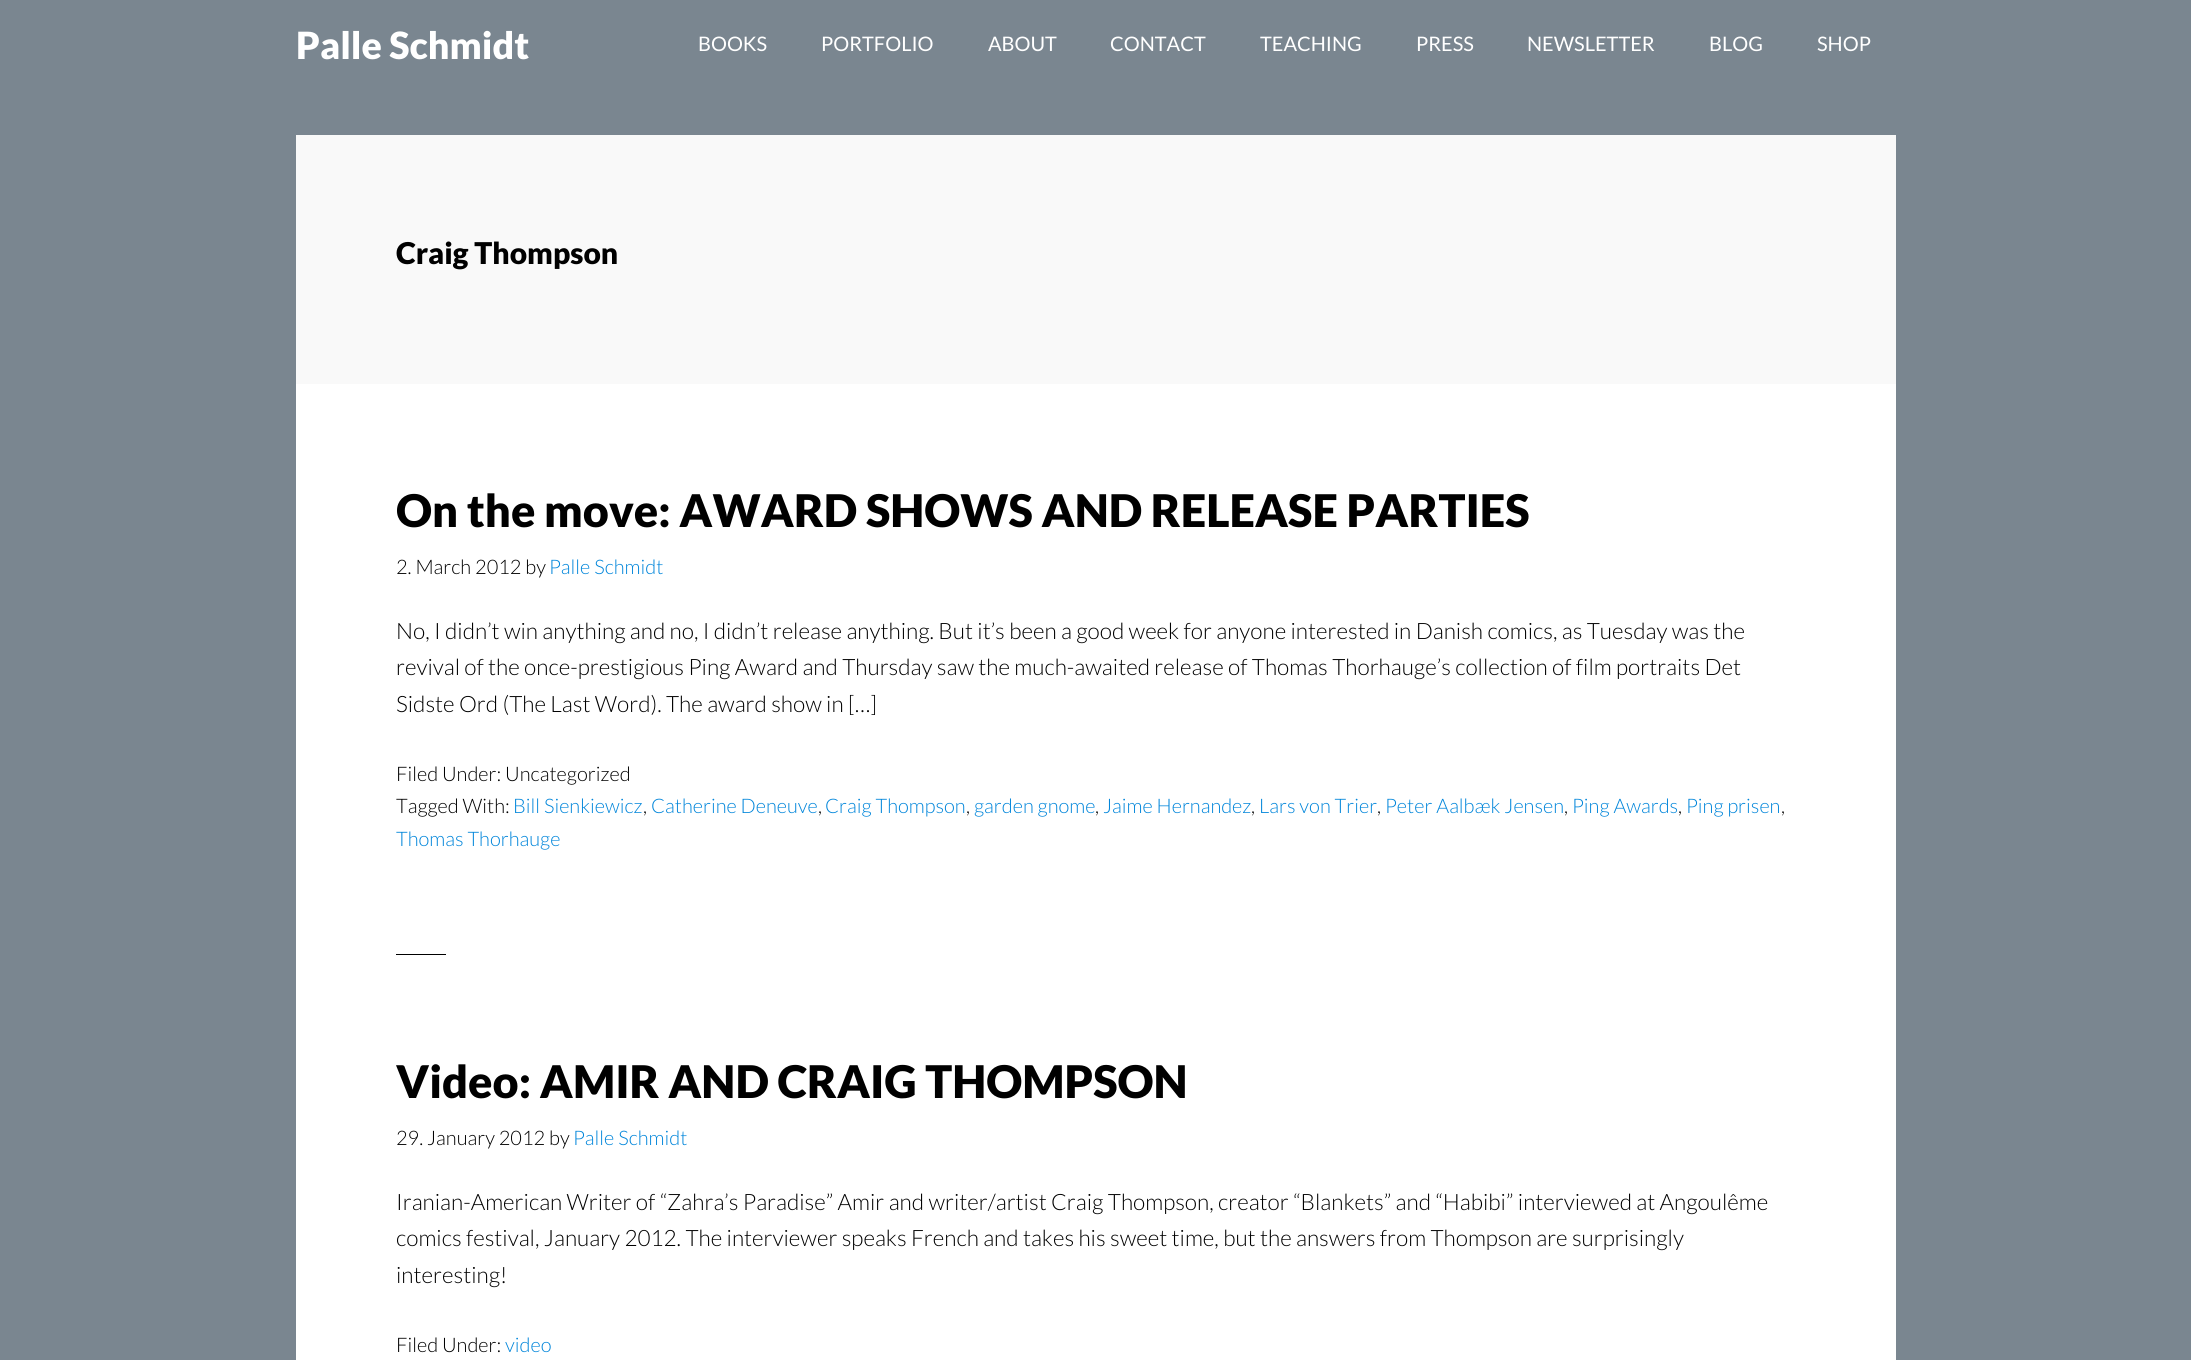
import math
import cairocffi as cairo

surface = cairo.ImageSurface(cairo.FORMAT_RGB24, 2191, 1360)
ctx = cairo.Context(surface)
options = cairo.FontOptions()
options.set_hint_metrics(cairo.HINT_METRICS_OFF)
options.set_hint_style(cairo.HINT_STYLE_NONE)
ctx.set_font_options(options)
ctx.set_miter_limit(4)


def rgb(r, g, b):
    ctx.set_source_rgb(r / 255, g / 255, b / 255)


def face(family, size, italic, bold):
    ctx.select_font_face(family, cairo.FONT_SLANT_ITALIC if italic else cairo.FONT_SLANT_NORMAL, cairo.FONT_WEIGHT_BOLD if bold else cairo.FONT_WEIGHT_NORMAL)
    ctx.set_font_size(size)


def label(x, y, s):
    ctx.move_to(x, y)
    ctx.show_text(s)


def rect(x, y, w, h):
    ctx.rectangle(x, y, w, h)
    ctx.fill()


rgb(122, 134, 144)
ctx.paint()
face('Lato Black', 37.5, 0, 0)
rgb(255, 255, 255)
label(296, 59, 'Palle Schmidt')
face('Lato', 20, 0, 0)
label(698, 51, 'BOOKS')
label(821, 51, 'PORTFOLIO')
label(988, 51, 'ABOUT')
label(1110, 51, 'CONTACT')
label(1260, 51, 'TEACHING')
label(1416, 51, 'PRESS')
label(1527, 51, 'NEWSLETTER')
label(1709, 51, 'BLOG')
label(1817, 51, 'SHOP')
rect(296, 384, 1600, 976)
rgb(249, 249, 249)
rect(296, 135, 1600, 249)
face('Lato Black', 30, 0, 0)
rgb(0, 0, 0)
label(396, 264, 'Craig Thompson')
face('Lato Black', 45, 0, 0)
label(396, 527, 'On the move: AWARD SHOWS AND RELEASE PARTIES')
face('Lato Light', 20, 0, 0)
label(396, 574, '2. March 2012 by')
rgb(0, 133, 218)
label(549, 574, 'Palle Schmidt')
face('Lato Light', 22.5, 0, 0)
rgb(0, 0, 0)
label(396, 639, 'No, I didn’t win anything and no, I didn’t release anything. But it’s been a good week for anyone interested in Danish comics, as Tuesday was the')
label(396, 675, 'revival of the once-prestigious Ping Award and Thursday saw the much-awaited release of Thomas Thorhauge’s collection of film portraits Det')
label(396, 712, 'Sidste Ord (The Last Word). The award show in […]')
face('Lato Light', 20, 0, 0)
label(396, 781, 'Filed Under: Uncategorized')
label(396, 813, 'Tagged With:')
rgb(0, 133, 218)
label(513, 813, 'Bill Sienkiewicz')
rgb(0, 0, 0)
label(643, 813, ',')
rgb(0, 133, 218)
label(651, 813, 'Catherine Deneuve')
rgb(0, 0, 0)
label(818, 813, ',')
rgb(0, 133, 218)
label(825, 813, 'Craig Thompson')
rgb(0, 0, 0)
label(966, 813, ',')
rgb(0, 133, 218)
label(974, 813, 'garden gnome')
rgb(0, 0, 0)
label(1095, 813, ',')
rgb(0, 133, 218)
label(1103, 813, 'Jaime Hernandez')
rgb(0, 0, 0)
label(1251, 813, ',')
rgb(0, 133, 218)
label(1259, 813, 'Lars von Trier')
rgb(0, 0, 0)
label(1377, 813, ',')
rgb(0, 133, 218)
label(1385, 813, 'Peter Aalbæk Jensen')
rgb(0, 0, 0)
label(1564, 813, ',')
rgb(0, 133, 218)
label(1572, 813, 'Ping Awards')
rgb(0, 0, 0)
label(1678, 813, ',')
rgb(0, 133, 218)
label(1686, 813, 'Ping prisen')
rgb(0, 0, 0)
label(1781, 813, ',')
rgb(0, 133, 218)
label(396, 846, 'Thomas Thorhauge')
rgb(0, 0, 0)
rect(396, 954, 50, 1)
face('Lato Black', 45, 0, 0)
label(396, 1098, 'Video: AMIR AND CRAIG THOMPSON')
face('Lato Light', 20, 0, 0)
label(396, 1145, '29. January 2012 by')
rgb(0, 133, 218)
label(573, 1145, 'Palle Schmidt')
face('Lato Light', 22.5, 0, 0)
rgb(0, 0, 0)
label(396, 1210, 'Iranian-American Writer of “Zahra’s Paradise” Amir and writer/artist Craig Thompson, creator “Blankets” and “Habibi” interviewed at Angoulême')
label(396, 1246, 'comics festival, January 2012. The interviewer speaks French and takes his sweet time, but the answers from Thompson are surprisingly')
label(396, 1283, 'interesting!')
face('Lato Light', 20, 0, 0)
label(396, 1352, 'Filed Under:')
rgb(0, 133, 218)
label(505, 1352, 'video')
surface.write_to_png('render.png')
